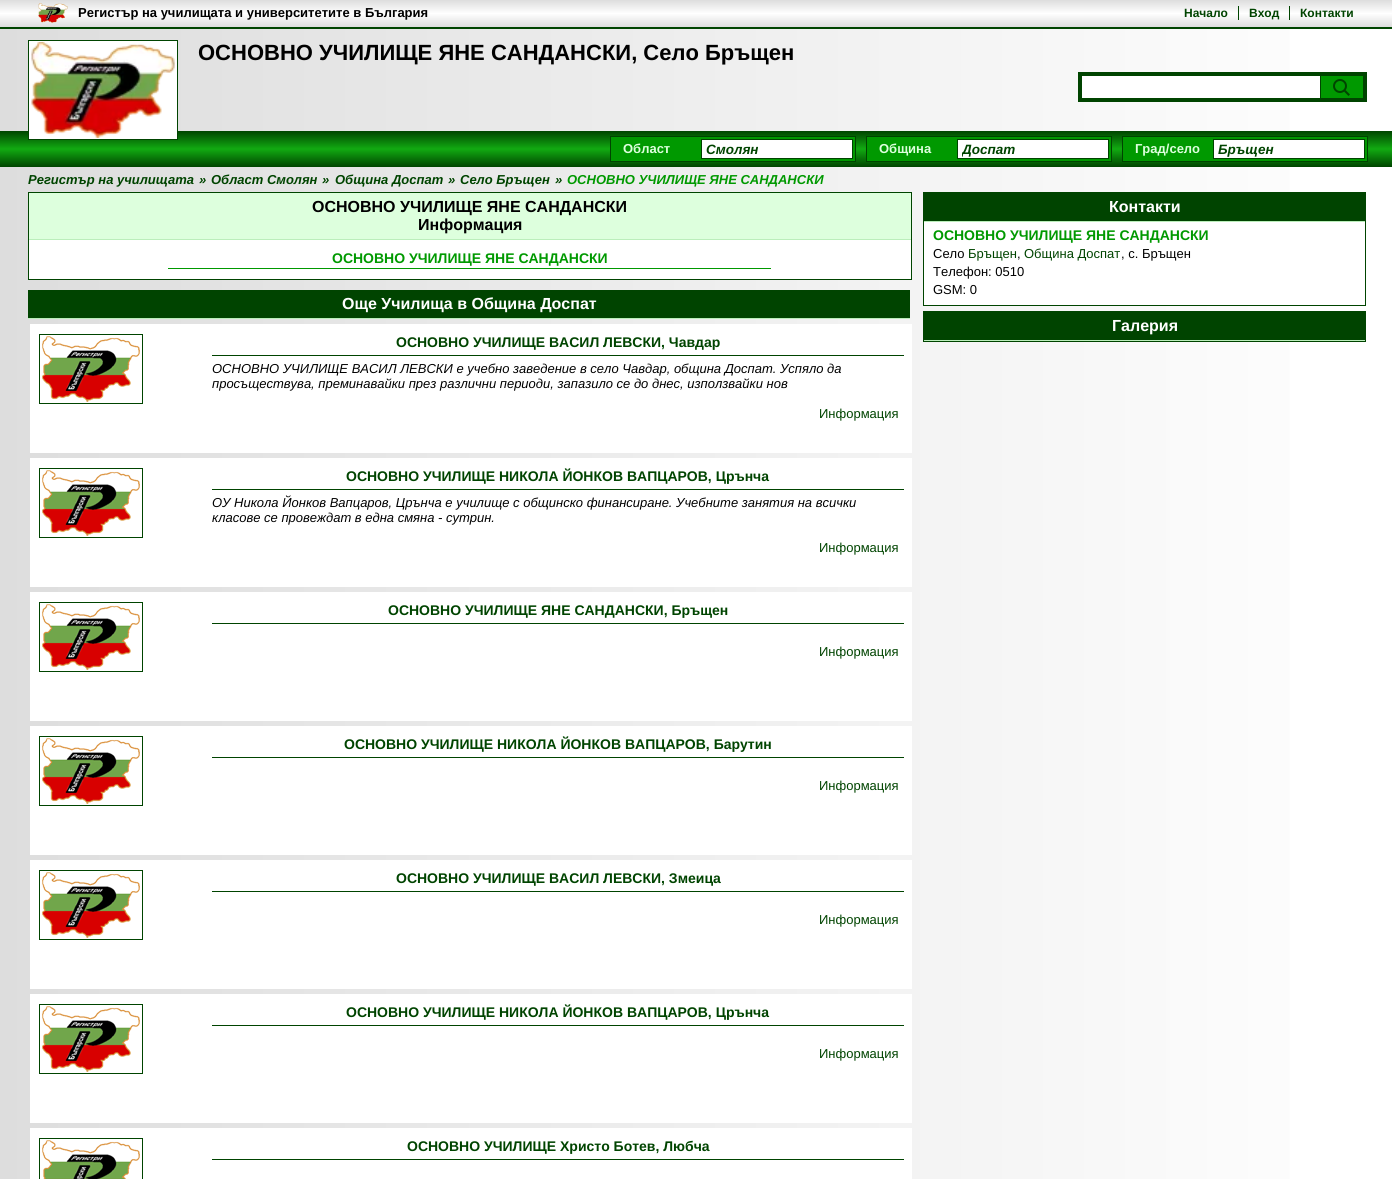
import math
import cairocffi as cairo

surface = cairo.ImageSurface(cairo.FORMAT_RGB24, 1392, 1179)
ctx = cairo.Context(surface)
options = cairo.FontOptions()
options.set_hint_metrics(cairo.HINT_METRICS_OFF)
options.set_hint_style(cairo.HINT_STYLE_NONE)
ctx.set_font_options(options)
ctx.set_miter_limit(4)


def rgb(r, g, b):
    ctx.set_source_rgb(r / 255, g / 255, b / 255)


def face(family, size, italic, bold):
    ctx.select_font_face(family, cairo.FONT_SLANT_ITALIC if italic else cairo.FONT_SLANT_NORMAL, cairo.FONT_WEIGHT_BOLD if bold else cairo.FONT_WEIGHT_NORMAL)
    ctx.set_font_size(size)


def label(x, y, s):
    ctx.move_to(x, y)
    ctx.show_text(s)


def rect(x, y, w, h):
    ctx.rectangle(x, y, w, h)
    ctx.fill()


def image(path, x, y, w, h):
    ctx.save()
    ctx.set_source_surface(cairo.ImageSurface.create_from_png(path), x, y)
    ctx.rectangle(x, y, w, h)
    ctx.fill()
    ctx.restore()


rgb(255, 255, 255)
ctx.paint()
gradient = cairo.LinearGradient(1392, 795, 0, 795)
gradient.add_color_stop_rgba(0, 1, 1, 1, 1)
gradient.add_color_stop_rgba(1, 0.867, 0.867, 0.867, 1)
ctx.set_source(gradient)
rect(0, 29, 1290, 1150)
gradient = cairo.LinearGradient(696, 27, 696, 0)
gradient.add_color_stop_rgba(0, 0.867, 0.867, 0.867, 1)
gradient.add_color_stop_rgba(0.5, 1, 1, 1, 1)
gradient.add_color_stop_rgba(1, 0.867, 0.867, 0.867, 1)
ctx.set_source(gradient)
rect(0, 0, 1392, 27)
rgb(0, 68, 0)
rect(0, 27, 1392, 2)
image('image0.png', 38, 3, 30, 20)
face('Liberation Sans', 13, 0, 1)
rgb(0, 0, 0)
label(78, 17, 'Регистър на училищата и университетите в България')
face('Liberation Sans', 12, 0, 1)
rgb(0, 68, 0)
label(1184, 17, 'Начало')
label(1249, 17, 'Вход')
rect(1238, 6, 1, 14)
label(1300, 17, 'Контакти')
rect(1289, 6, 1, 14)
gradient = cairo.LinearGradient(696, 167, 696, 131)
gradient.add_color_stop_rgba(0, 0, 0.267, 0, 1)
gradient.add_color_stop_rgba(0.5, 0.067, 0.667, 0.067, 1)
gradient.add_color_stop_rgba(1, 0, 0.267, 0, 1)
ctx.set_source(gradient)
rect(0, 131, 1392, 36)
rgb(255, 255, 255)
ctx.rectangle(28.5, 40.5, 149, 99)
ctx.fill_preserve()
rgb(0, 68, 0)
ctx.set_line_width(1)
ctx.stroke()
image('image1.png', 31, 42, 144, 96)
face('Liberation Sans', 22, 0, 1)
rgb(0, 0, 0)
label(198, 60, 'ОСНОВНО УЧИЛИЩЕ ЯНЕ САНДАНСКИ, Село Бръщен')
rgb(0, 68, 0)
rect(1078, 72, 289, 30)
rgb(255, 255, 255)
rect(1082, 76, 238, 22)
rgb(0, 153, 0)
rect(1321, 76, 42, 22)
ctx.new_path()
ctx.arc(1340, 86, 6, 0, 2 * math.pi)
rgb(0, 68, 0)
ctx.set_line_width(2)
ctx.stroke()
ctx.new_path()
ctx.move_to(1345.5, 90)
ctx.line_to(1350, 94.5)
ctx.line_to(1348.5, 96)
ctx.line_to(1344, 91.5)
ctx.close_path()
ctx.fill()
rgb(0, 153, 0)
ctx.rectangle(610.5, 136.5, 245, 25)
ctx.fill_preserve()
rgb(0, 68, 0)
ctx.set_line_width(1)
ctx.stroke()
face('Liberation Sans', 13, 0, 1)
rgb(221, 255, 221)
label(623, 153, 'Област')
rgb(255, 255, 255)
ctx.rectangle(701.5, 139.5, 151, 19)
ctx.fill_preserve()
rgb(0, 68, 0)
ctx.stroke()
face('Liberation Sans', 13.5, 1, 1)
label(706, 154, 'Смолян')
rgb(0, 153, 0)
ctx.rectangle(866.5, 136.5, 245, 25)
ctx.fill_preserve()
rgb(0, 68, 0)
ctx.stroke()
face('Liberation Sans', 13, 0, 1)
rgb(221, 255, 221)
label(879, 153, 'Община')
rgb(255, 255, 255)
ctx.rectangle(957.5, 139.5, 151, 19)
ctx.fill_preserve()
rgb(0, 68, 0)
ctx.stroke()
ctx.save()
ctx.rectangle(962, 142, 142, 15)
ctx.clip()
face('Liberation Sans', 13.5, 1, 1)
label(962, 154, 'Доспат')
ctx.restore()
rgb(0, 153, 0)
ctx.rectangle(1122.5, 136.5, 245, 25)
ctx.fill_preserve()
rgb(0, 68, 0)
ctx.stroke()
rgb(221, 255, 221)
label(1135, 153, 'Град/село')
rgb(255, 255, 255)
ctx.rectangle(1213.5, 139.5, 151, 19)
ctx.fill_preserve()
rgb(0, 68, 0)
ctx.stroke()
face('Liberation Sans', 13.5, 1, 1)
label(1218, 154, 'Бръщен')
face('Liberation Sans', 13, 1, 1)
label(28, 184, 'Регистър на училищата')
label(199, 184, '»')
label(211, 184, 'Област Смолян')
label(322, 184, '»')
label(335, 184, 'Община Доспат')
label(448, 184, '»')
label(460, 184, 'Село Бръщен')
label(555, 184, '»')
rgb(0, 153, 0)
label(567, 184, 'ОСНОВНО УЧИЛИЩЕ ЯНЕ САНДАНСКИ')
rgb(255, 255, 255)
rect(29, 240, 882, 39)
ctx.rectangle(28.5, 192.5, 883, 87)
rgb(0, 68, 0)
ctx.stroke()
rgb(221, 255, 221)
rect(29, 193, 882, 46)
rgb(187, 238, 187)
rect(29, 239, 882, 1)
face('Liberation Sans', 16, 0, 1)
rgb(0, 0, 0)
label(312, 212, 'ОСНОВНО УЧИЛИЩЕ ЯНЕ САНДАНСКИ')
label(418, 230, 'Информация')
rgb(0, 153, 0)
rect(168, 268, 603, 1)
face('Liberation Sans', 14, 0, 1)
label(332, 263, 'ОСНОВНО УЧИЛИЩЕ ЯНЕ САНДАНСКИ')
rgb(255, 255, 255)
rect(924, 222, 366, 83)
ctx.rectangle(923.5, 192.5, 442, 113)
rgb(0, 68, 0)
ctx.stroke()
rect(924, 193, 441, 28)
rgb(187, 238, 187)
rect(924, 221, 441, 1)
face('Liberation Sans', 16, 0, 1)
rgb(255, 255, 255)
label(1109, 212, 'Контакти')
face('Liberation Sans', 14, 0, 1)
rgb(0, 153, 0)
label(933, 240, 'ОСНОВНО УЧИЛИЩЕ ЯНЕ САНДАНСКИ')
face('Liberation Sans', 13, 0, 0)
rgb(0, 0, 0)
label(933, 258, 'Село')
rgb(0, 68, 0)
label(968, 258, 'Бръщен')
rgb(0, 0, 0)
label(1017, 258, ',')
rgb(0, 68, 0)
label(1024, 258, 'Община Доспат')
rgb(0, 0, 0)
label(1121, 258, ', с. Бръщен')
label(933, 276, 'Телефон: 0510')
label(933, 294, 'GSM: 0')
ctx.rectangle(923.5, 311.5, 442, 30)
rgb(0, 68, 0)
ctx.stroke()
rect(924, 312, 441, 28)
rgb(187, 238, 187)
rect(924, 340, 441, 1)
face('Liberation Sans', 16, 0, 1)
rgb(255, 255, 255)
label(1112, 331, 'Галерия')
rgb(0, 68, 0)
rect(28, 290, 882, 28)
rgb(187, 238, 187)
rect(28, 318, 882, 1)
rgb(255, 255, 255)
label(342, 309, 'Още Училища в Община Доспат')
rect(30, 324, 882, 129)
ctx.rectangle(39.5, 334.5, 103, 69)
rgb(0, 68, 0)
ctx.stroke()
image('image2.png', 42, 336, 98, 66)
rect(212, 355, 692, 1)
face('Liberation Sans', 14, 0, 1)
label(396, 347, 'ОСНОВНО УЧИЛИЩЕ ВАСИЛ ЛЕВСКИ, Чавдар')
face('Liberation Sans', 13, 1, 0)
rgb(0, 0, 0)
label(212, 373, 'ОСНОВНО УЧИЛИЩЕ ВАСИЛ ЛЕВСКИ е учебно заведение в село Чавдар, община Доспат. Успяло да')
label(212, 388, 'просъществува, преминавайки през различни периоди, запазило се до днес, използвайки нов')
face('Liberation Sans', 13, 0, 0)
rgb(0, 68, 0)
label(819, 418, 'Информация')
rgb(255, 255, 255)
rect(30, 458, 882, 129)
ctx.rectangle(39.5, 468.5, 103, 69)
rgb(0, 68, 0)
ctx.stroke()
image('image2.png', 42, 470, 98, 66)
rect(212, 489, 692, 1)
face('Liberation Sans', 14, 0, 1)
label(346, 481, 'ОСНОВНО УЧИЛИЩЕ НИКОЛА ЙОНКОВ ВАПЦАРОВ, Црънча')
face('Liberation Sans', 13, 1, 0)
rgb(0, 0, 0)
label(212, 507, 'ОУ Никола Йонков Вапцаров, Црънча е училище с общинско финансиране. Учебните занятия на всички')
label(212, 522, 'класове се провеждат в една смяна - сутрин.')
face('Liberation Sans', 13, 0, 0)
rgb(0, 68, 0)
label(819, 552, 'Информация')
rgb(255, 255, 255)
rect(30, 592, 882, 129)
ctx.rectangle(39.5, 602.5, 103, 69)
rgb(0, 68, 0)
ctx.stroke()
image('image2.png', 42, 604, 98, 66)
rect(212, 623, 692, 1)
face('Liberation Sans', 14, 0, 1)
label(388, 615, 'ОСНОВНО УЧИЛИЩЕ ЯНЕ САНДАНСКИ, Бръщен')
face('Liberation Sans', 13, 0, 0)
label(819, 656, 'Информация')
rgb(255, 255, 255)
rect(30, 726, 882, 129)
ctx.rectangle(39.5, 736.5, 103, 69)
rgb(0, 68, 0)
ctx.stroke()
image('image2.png', 42, 738, 98, 66)
rect(212, 757, 692, 1)
face('Liberation Sans', 14, 0, 1)
label(344, 749, 'ОСНОВНО УЧИЛИЩЕ НИКОЛА ЙОНКОВ ВАПЦАРОВ, Барутин')
face('Liberation Sans', 13, 0, 0)
label(819, 790, 'Информация')
rgb(255, 255, 255)
rect(30, 860, 882, 129)
ctx.rectangle(39.5, 870.5, 103, 69)
rgb(0, 68, 0)
ctx.stroke()
image('image2.png', 42, 872, 98, 66)
rect(212, 891, 692, 1)
face('Liberation Sans', 14, 0, 1)
label(396, 883, 'ОСНОВНО УЧИЛИЩЕ ВАСИЛ ЛЕВСКИ, Змеица')
face('Liberation Sans', 13, 0, 0)
label(819, 924, 'Информация')
rgb(255, 255, 255)
rect(30, 994, 882, 129)
ctx.rectangle(39.5, 1004.5, 103, 69)
rgb(0, 68, 0)
ctx.stroke()
image('image2.png', 42, 1006, 98, 66)
rect(212, 1025, 692, 1)
face('Liberation Sans', 14, 0, 1)
label(346, 1017, 'ОСНОВНО УЧИЛИЩЕ НИКОЛА ЙОНКОВ ВАПЦАРОВ, Црънча')
face('Liberation Sans', 13, 0, 0)
label(819, 1058, 'Информация')
rgb(255, 255, 255)
rect(30, 1128, 882, 51)
ctx.rectangle(39.5, 1138.5, 103, 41)
rgb(0, 68, 0)
ctx.stroke()
image('image3.png', 42, 1140, 98, 39)
rect(212, 1159, 692, 1)
face('Liberation Sans', 14, 0, 1)
label(407, 1151, 'ОСНОВНО УЧИЛИЩЕ Христо Ботев, Любча')
surface.write_to_png('render.png')
